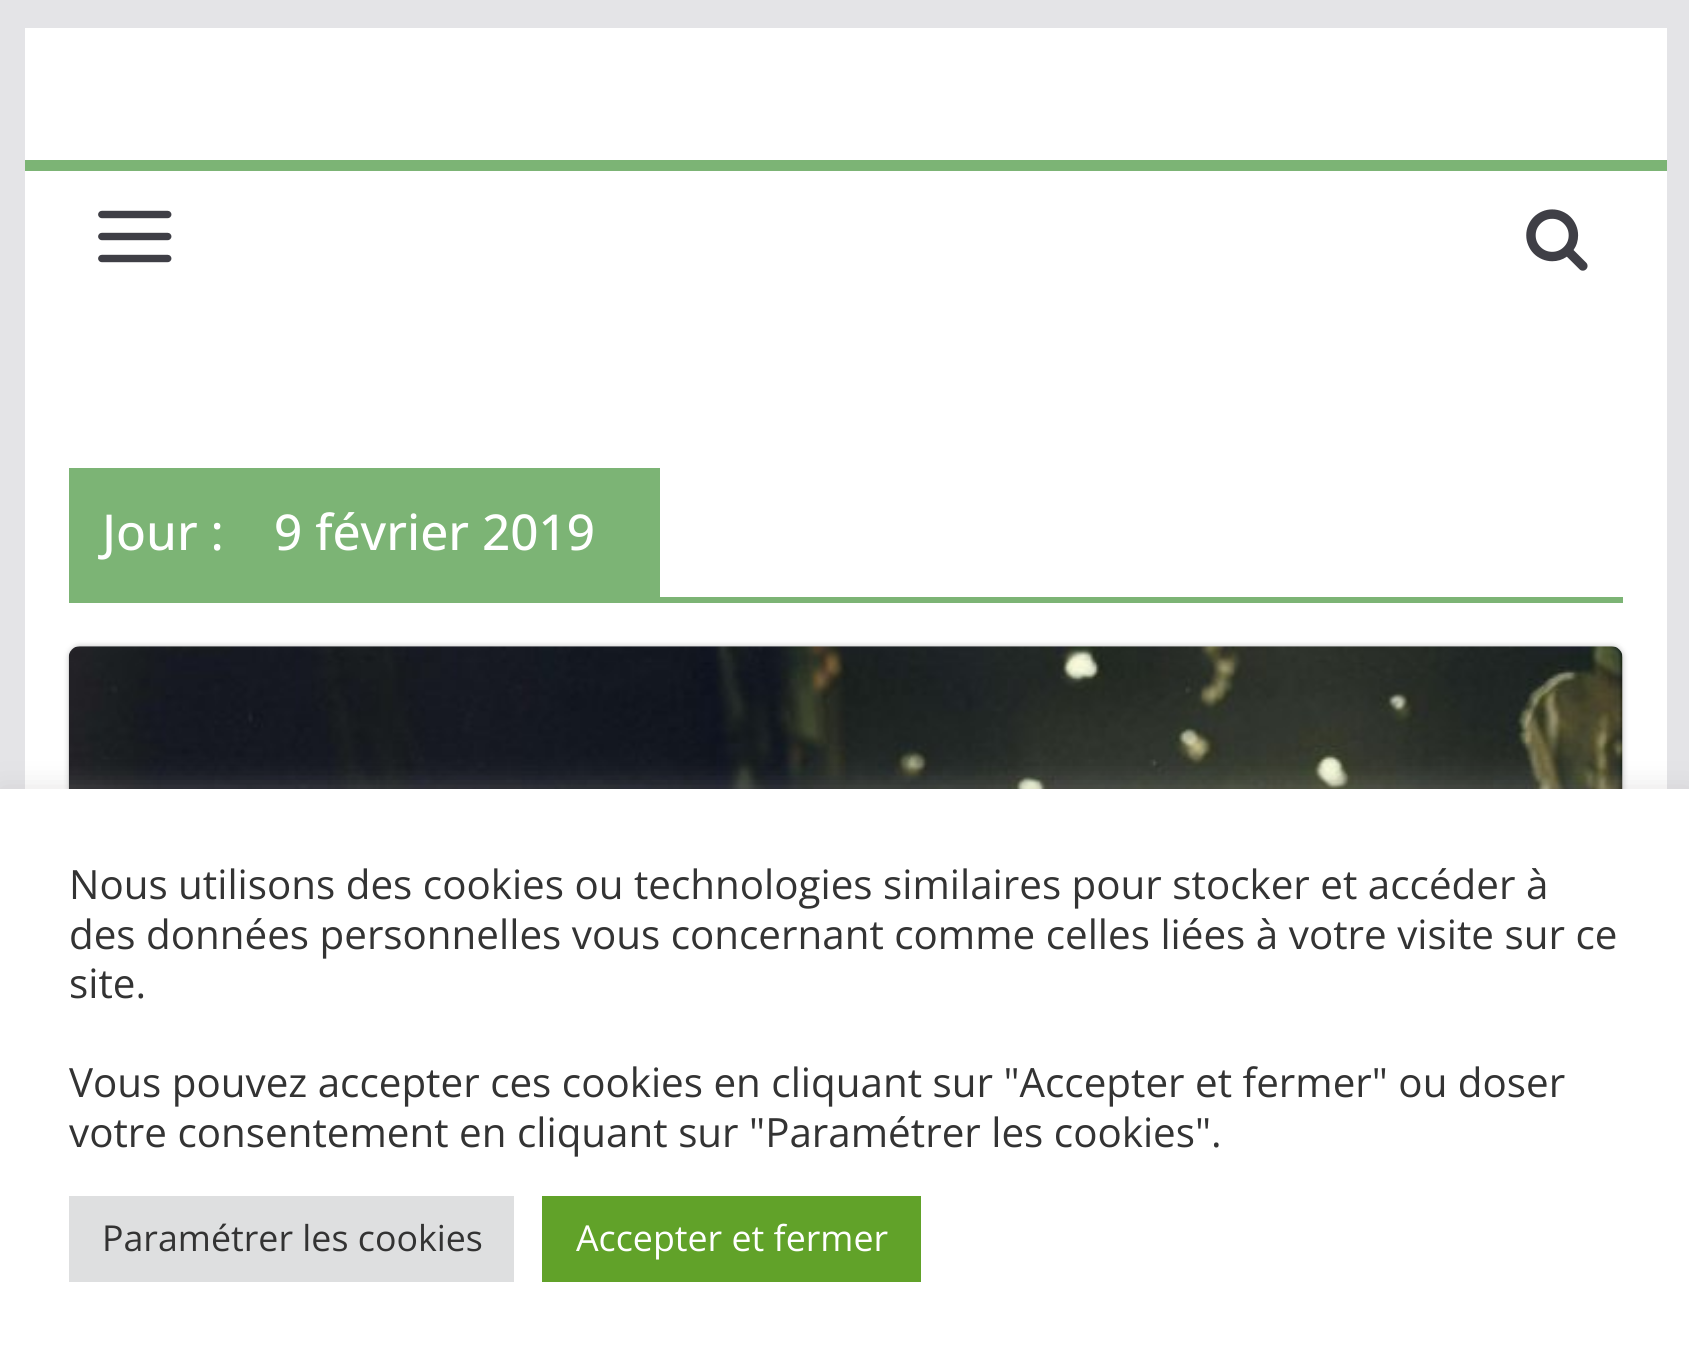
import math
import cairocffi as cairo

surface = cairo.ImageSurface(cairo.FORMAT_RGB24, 1689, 1363)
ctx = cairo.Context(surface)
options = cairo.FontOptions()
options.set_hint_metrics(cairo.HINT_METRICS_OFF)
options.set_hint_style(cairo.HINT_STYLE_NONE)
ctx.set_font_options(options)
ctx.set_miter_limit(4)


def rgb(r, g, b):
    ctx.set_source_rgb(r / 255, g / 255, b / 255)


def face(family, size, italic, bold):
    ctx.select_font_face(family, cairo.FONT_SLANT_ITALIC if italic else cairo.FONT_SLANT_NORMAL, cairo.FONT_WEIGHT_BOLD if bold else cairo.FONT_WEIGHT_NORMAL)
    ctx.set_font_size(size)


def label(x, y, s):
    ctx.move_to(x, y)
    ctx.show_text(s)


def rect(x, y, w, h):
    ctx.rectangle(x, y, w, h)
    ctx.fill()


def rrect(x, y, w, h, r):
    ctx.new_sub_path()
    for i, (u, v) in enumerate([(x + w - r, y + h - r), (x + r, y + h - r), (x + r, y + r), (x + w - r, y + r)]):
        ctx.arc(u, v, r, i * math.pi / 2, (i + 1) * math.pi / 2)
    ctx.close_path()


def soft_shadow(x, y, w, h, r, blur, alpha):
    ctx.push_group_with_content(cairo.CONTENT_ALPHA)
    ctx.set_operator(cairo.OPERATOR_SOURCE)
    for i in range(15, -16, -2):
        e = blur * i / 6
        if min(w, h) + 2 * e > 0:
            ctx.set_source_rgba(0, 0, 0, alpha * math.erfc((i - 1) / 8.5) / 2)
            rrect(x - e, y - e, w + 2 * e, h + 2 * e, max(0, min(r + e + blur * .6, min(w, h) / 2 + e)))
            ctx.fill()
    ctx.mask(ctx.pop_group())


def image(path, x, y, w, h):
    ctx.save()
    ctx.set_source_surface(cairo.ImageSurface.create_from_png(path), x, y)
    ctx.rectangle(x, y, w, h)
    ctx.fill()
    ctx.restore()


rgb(228, 228, 231)
ctx.paint()
rgb(255, 255, 255)
rect(25, 28, 1642, 761)
rgb(124, 180, 117)
rect(25, 160, 1642, 11)
image('image0.png', 98, 210, 74, 53)
image('image1.png', 1526, 209, 62, 62)
rect(69, 597, 1554, 6)
rect(69, 468, 591, 129)
face('Open Sans Medium', 49.5, 0, 0)
rgb(255, 255, 255)
label(102, 550, 'Jour :')
label(274, 550, '9 février 2019')
rgb(0, 0, 0)
soft_shadow(69, 646, 1554, 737, 11, 3, 0.24)
image('image2.png', 68, 646, 1555, 143)
rgb(172, 171, 171)
soft_shadow(0, 787, 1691, 574, 0, 14, 0.3)
rgb(255, 255, 255)
rect(0, 789, 1689, 574)
face('Open Sans', 40.35, 0, 0)
rgb(51, 51, 51)
label(69, 899, 'Nous utilisons des cookies ou technologies similaires pour stocker et accéder à')
label(69, 949, 'des données personnelles vous concernant comme celles liées à votre visite sur ce')
label(69, 998, 'site.')
label(69, 1097, 'Vous pouvez accepter ces cookies en cliquant sur "Accepter et fermer" ou doser')
label(69, 1147, 'votre consentement en cliquant sur "Paramétrer les cookies".')
rgb(222, 223, 224)
rect(69, 1196, 445, 86)
face('Open Sans', 35.75, 0, 0)
rgb(51, 51, 51)
label(102, 1251, 'Paramétrer les cookies')
rgb(97, 162, 41)
rect(542, 1196, 379, 86)
rgb(255, 255, 255)
label(576, 1251, 'Accepter et fermer')
surface.write_to_png('render.png')
